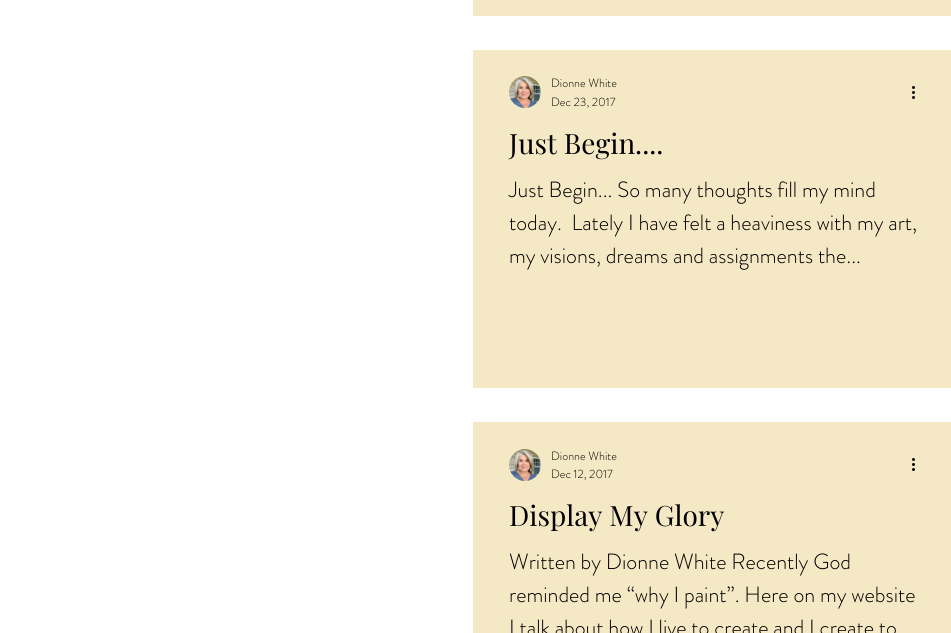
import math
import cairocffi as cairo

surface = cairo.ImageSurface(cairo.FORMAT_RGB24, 951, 633)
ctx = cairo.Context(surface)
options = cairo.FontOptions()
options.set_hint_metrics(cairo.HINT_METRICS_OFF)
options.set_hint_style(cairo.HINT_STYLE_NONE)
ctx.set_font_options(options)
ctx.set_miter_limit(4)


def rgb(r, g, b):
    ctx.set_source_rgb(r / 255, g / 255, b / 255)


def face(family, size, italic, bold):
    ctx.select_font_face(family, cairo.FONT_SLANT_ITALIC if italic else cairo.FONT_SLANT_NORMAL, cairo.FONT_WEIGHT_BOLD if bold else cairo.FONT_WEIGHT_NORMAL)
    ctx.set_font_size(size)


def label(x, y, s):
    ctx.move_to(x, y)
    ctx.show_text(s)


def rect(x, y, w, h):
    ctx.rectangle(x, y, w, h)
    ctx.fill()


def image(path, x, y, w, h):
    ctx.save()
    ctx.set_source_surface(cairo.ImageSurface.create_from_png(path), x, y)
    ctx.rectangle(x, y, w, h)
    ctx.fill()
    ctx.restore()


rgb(255, 255, 255)
ctx.paint()
rgb(245, 232, 196)
rect(473, 0, 478, 16)
rect(473, 50, 478, 338)
image('image0.png', 509, 76, 32, 32)
face('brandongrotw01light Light', 12, 0, 0)
rgb(0, 0, 0)
label(551, 87, 'Dionne White')
label(551, 106, 'Dec 23, 2017')
image('image1.png', 912, 86, 3, 13)
face('Playfair Display', 28, 0, 0)
label(509, 154, 'Just Begin....')
face('brandongrotw01light Light', 22, 0, 0)
label(509, 197, 'Just Begin... So many thoughts fill my mind')
label(509, 230, 'today.  Lately I have felt a heaviness with my art,')
label(509, 263, 'my visions, dreams and assignments the...')
rgb(245, 232, 196)
rect(473, 422, 478, 211)
image('image0.png', 509, 449, 32, 32)
face('brandongrotw01light Light', 12, 0, 0)
rgb(0, 0, 0)
label(551, 460, 'Dionne White')
label(551, 478, 'Dec 12, 2017')
image('image1.png', 912, 458, 3, 13)
face('Playfair Display', 28, 0, 0)
label(509, 526, 'Display My Glory')
face('brandongrotw01light Light', 22, 0, 0)
label(509, 569, 'Written by Dionne White Recently God')
label(509, 602, 'reminded me “why I paint”. Here on my website')
label(509, 635, 'I talk about how I live to create and I create to')
surface.write_to_png('render.png')
